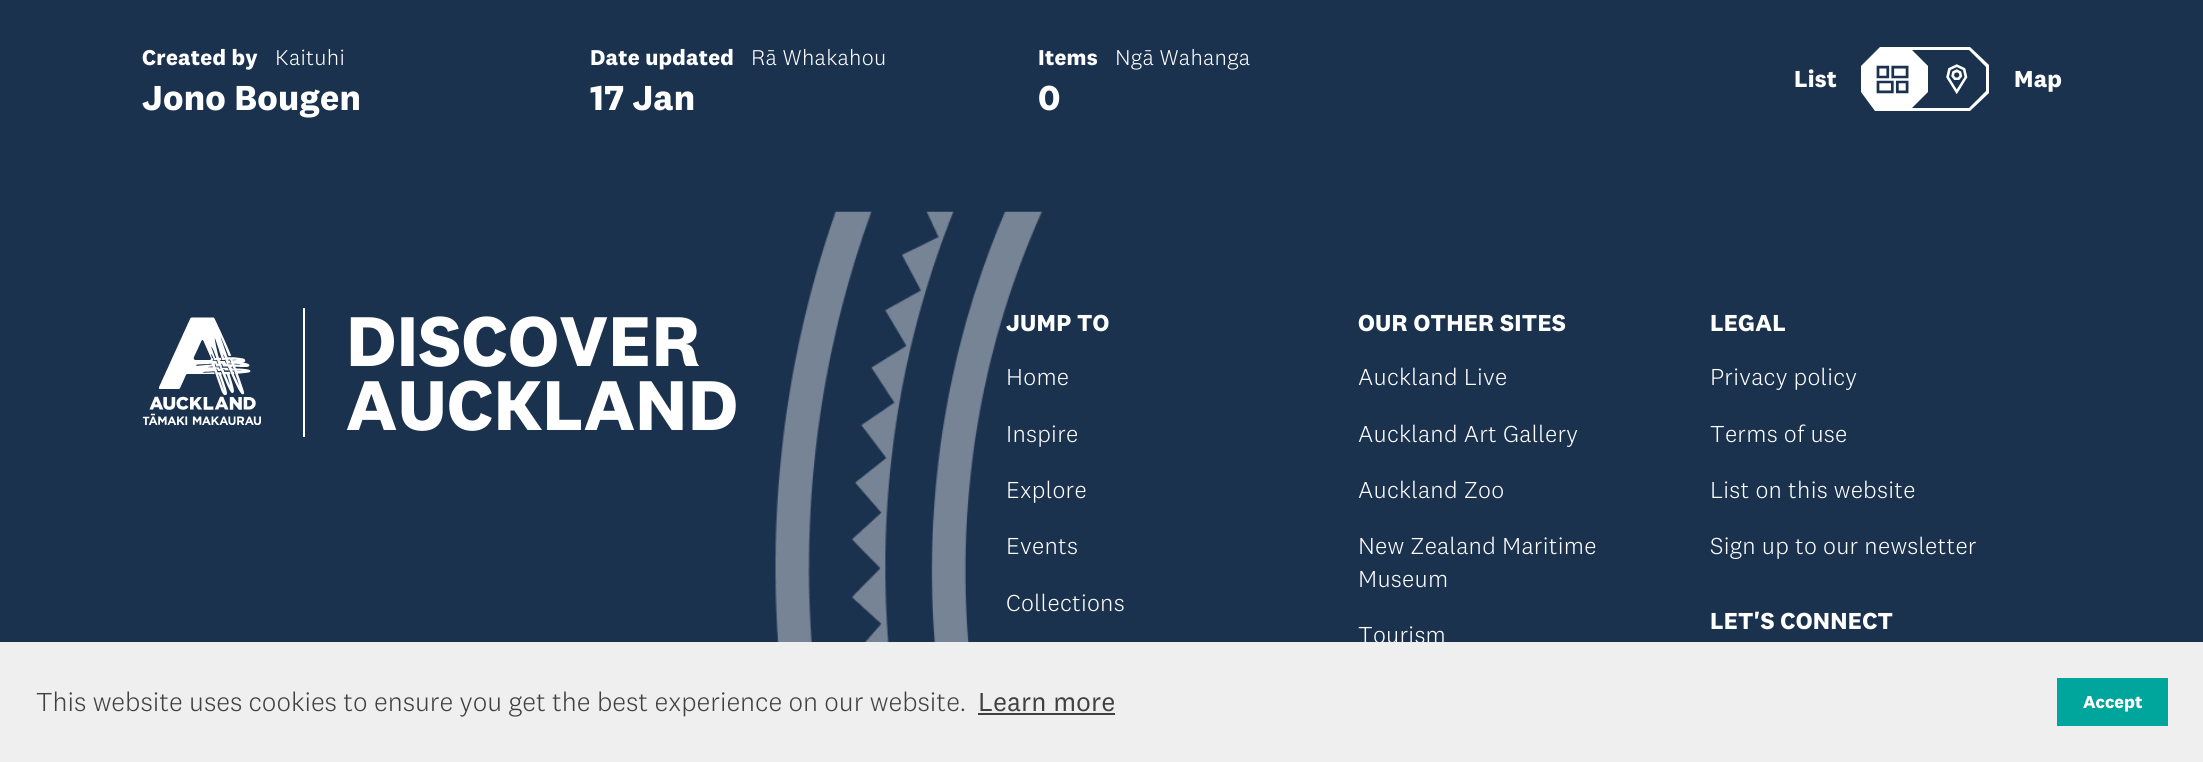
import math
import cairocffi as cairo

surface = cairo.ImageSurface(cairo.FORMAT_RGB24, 2203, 762)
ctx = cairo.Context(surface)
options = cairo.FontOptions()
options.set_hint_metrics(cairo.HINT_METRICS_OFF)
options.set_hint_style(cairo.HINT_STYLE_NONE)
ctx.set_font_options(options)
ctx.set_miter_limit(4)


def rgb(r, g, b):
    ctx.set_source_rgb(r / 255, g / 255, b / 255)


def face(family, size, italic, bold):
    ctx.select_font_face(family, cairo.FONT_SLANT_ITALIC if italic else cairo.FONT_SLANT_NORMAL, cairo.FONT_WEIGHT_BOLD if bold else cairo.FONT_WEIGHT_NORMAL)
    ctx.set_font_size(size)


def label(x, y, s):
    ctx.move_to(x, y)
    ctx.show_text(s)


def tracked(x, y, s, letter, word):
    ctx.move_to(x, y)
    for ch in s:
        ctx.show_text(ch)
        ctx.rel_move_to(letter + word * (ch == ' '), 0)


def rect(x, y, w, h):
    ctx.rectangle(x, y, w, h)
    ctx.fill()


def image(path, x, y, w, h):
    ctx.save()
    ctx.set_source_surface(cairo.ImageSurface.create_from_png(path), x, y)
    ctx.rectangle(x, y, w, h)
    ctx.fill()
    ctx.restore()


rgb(27, 50, 79)
ctx.paint()
face('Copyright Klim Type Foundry', 22.25, 0, 1)
rgb(255, 255, 255)
tracked(142, 65, 'Created by', 0.25, 0)
face('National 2 Light', 22.25, 0, 0)
tracked(275, 65, 'Kaituhi', 0.25, 0)
face('Copyright Klim Type Foundry', 36, 0, 1)
tracked(142, 110, 'Jono Bougen', 0.25, 0)
face('Copyright Klim Type Foundry', 22.25, 0, 1)
tracked(590, 65, 'Date updated', 0.25, 0)
face('National 2 Light', 22.25, 0, 0)
tracked(751, 65, 'Rā Whakahou', 0.25, 0)
face('Copyright Klim Type Foundry', 36, 0, 1)
tracked(590, 110, '17 Jan', 0.25, 0)
face('Copyright Klim Type Foundry', 22.25, 0, 1)
tracked(1038, 65, 'Items', 0.25, 0)
face('National 2 Light', 22.25, 0, 0)
tracked(1115, 65, 'Ngā Wahanga', 0.25, 0)
face('Copyright Klim Type Foundry', 36, 0, 1)
tracked(1038, 110, '0', 0.25, 0)
face('Copyright Klim Type Foundry', 24, 0, 1)
tracked(1794, 87, 'List', 0.25, 0)
ctx.new_path()
ctx.move_to(1875, 111)
ctx.line_to(1861, 92)
ctx.line_to(1861, 66)
ctx.line_to(1880, 47)
ctx.line_to(1970, 47)
ctx.line_to(1989, 65)
ctx.line_to(1989, 93)
ctx.line_to(1970, 111)
ctx.close_path()
ctx.fill()
rgb(27, 50, 79)
ctx.new_path()
ctx.move_to(1878, 108)
ctx.line_to(1864, 91)
ctx.line_to(1864, 67)
ctx.line_to(1881, 50)
ctx.line_to(1969, 50)
ctx.line_to(1986, 67)
ctx.line_to(1986, 91)
ctx.line_to(1969, 108)
ctx.close_path()
ctx.fill()
rgb(255, 255, 255)
ctx.new_path()
ctx.move_to(1878, 111)
ctx.line_to(1864, 92)
ctx.line_to(1864, 66)
ctx.line_to(1883, 47)
ctx.line_to(1909, 47)
ctx.line_to(1928, 66)
ctx.line_to(1928, 92)
ctx.line_to(1909, 111)
ctx.close_path()
ctx.fill()
image('image0.png', 1876, 65, 33, 29)
image('image1.png', 1946, 64, 22, 30)
tracked(2014, 87, 'Map', 0.25, 0)
image('image2.png', 142, 317, 119, 108)
rect(303, 308, 2, 129)
face('Copyright Klim Type Foundry', 73, 0, 1)
tracked(346, 366, 'DISCOVER', 0.25, 0)
tracked(346, 430, 'AUCKLAND', 0.25, 0)
image('image3.png', 775, 211, 267, 431)
face('Copyright Klim Type Foundry', 24, 0, 1)
tracked(1006, 331, 'JUMP TO', 0.25, 0)
face('National 2 Light', 24, 0, 0)
tracked(1006, 385, 'Home', 0.25, 0)
tracked(1006, 442, 'Inspire', 0.25, 0)
tracked(1006, 498, 'Explore', 0.25, 0)
tracked(1006, 554, 'Events', 0.25, 0)
tracked(1006, 611, 'Collections', 0.25, 0)
face('Copyright Klim Type Foundry', 24, 0, 1)
tracked(1358, 331, 'OUR OTHER SITES', 0.25, 0)
face('National 2 Light', 24, 0, 0)
tracked(1358, 385, 'Auckland Live', 0.25, 0)
tracked(1358, 442, 'Auckland Art Gallery', 0.25, 0)
tracked(1358, 498, 'Auckland Zoo', 0.25, 0)
tracked(1358, 554, 'New Zealand Maritime', 0.25, 0)
tracked(1358, 587, 'Museum', 0.25, 0)
tracked(1358, 643, 'Tourism', 0.25, 0)
face('Copyright Klim Type Foundry', 24, 0, 1)
tracked(1710, 331, 'LEGAL', 0.25, 0)
face('National 2 Light', 24, 0, 0)
tracked(1710, 385, 'Privacy policy', 0.25, 0)
tracked(1710, 442, 'Terms of use', 0.25, 0)
tracked(1710, 498, 'List on this website', 0.25, 0)
tracked(1710, 554, 'Sign up to our newsletter', 0.25, 0)
face('Copyright Klim Type Foundry', 24, 0, 1)
tracked(1710, 629, 'LET\'S CONNECT', 0.25, 0)
rgb(239, 239, 239)
rect(0, 642, 2203, 120)
face('National 2 Light', 27, 0, 0)
rgb(64, 64, 64)
label(36, 711, 'This website uses cookies to ensure you get the best experience on our website.')
face('Copyright Klim Type Foundry', 27, 0, 0)
label(978, 711, 'Learn more')
rect(978, 713, 137, 2)
rgb(0, 165, 156)
rect(2057, 678, 111, 48)
face('Copyright Klim Type Foundry', 18, 0, 1)
rgb(255, 255, 255)
label(2083, 708, 'Accept')
surface.write_to_png('render.png')
